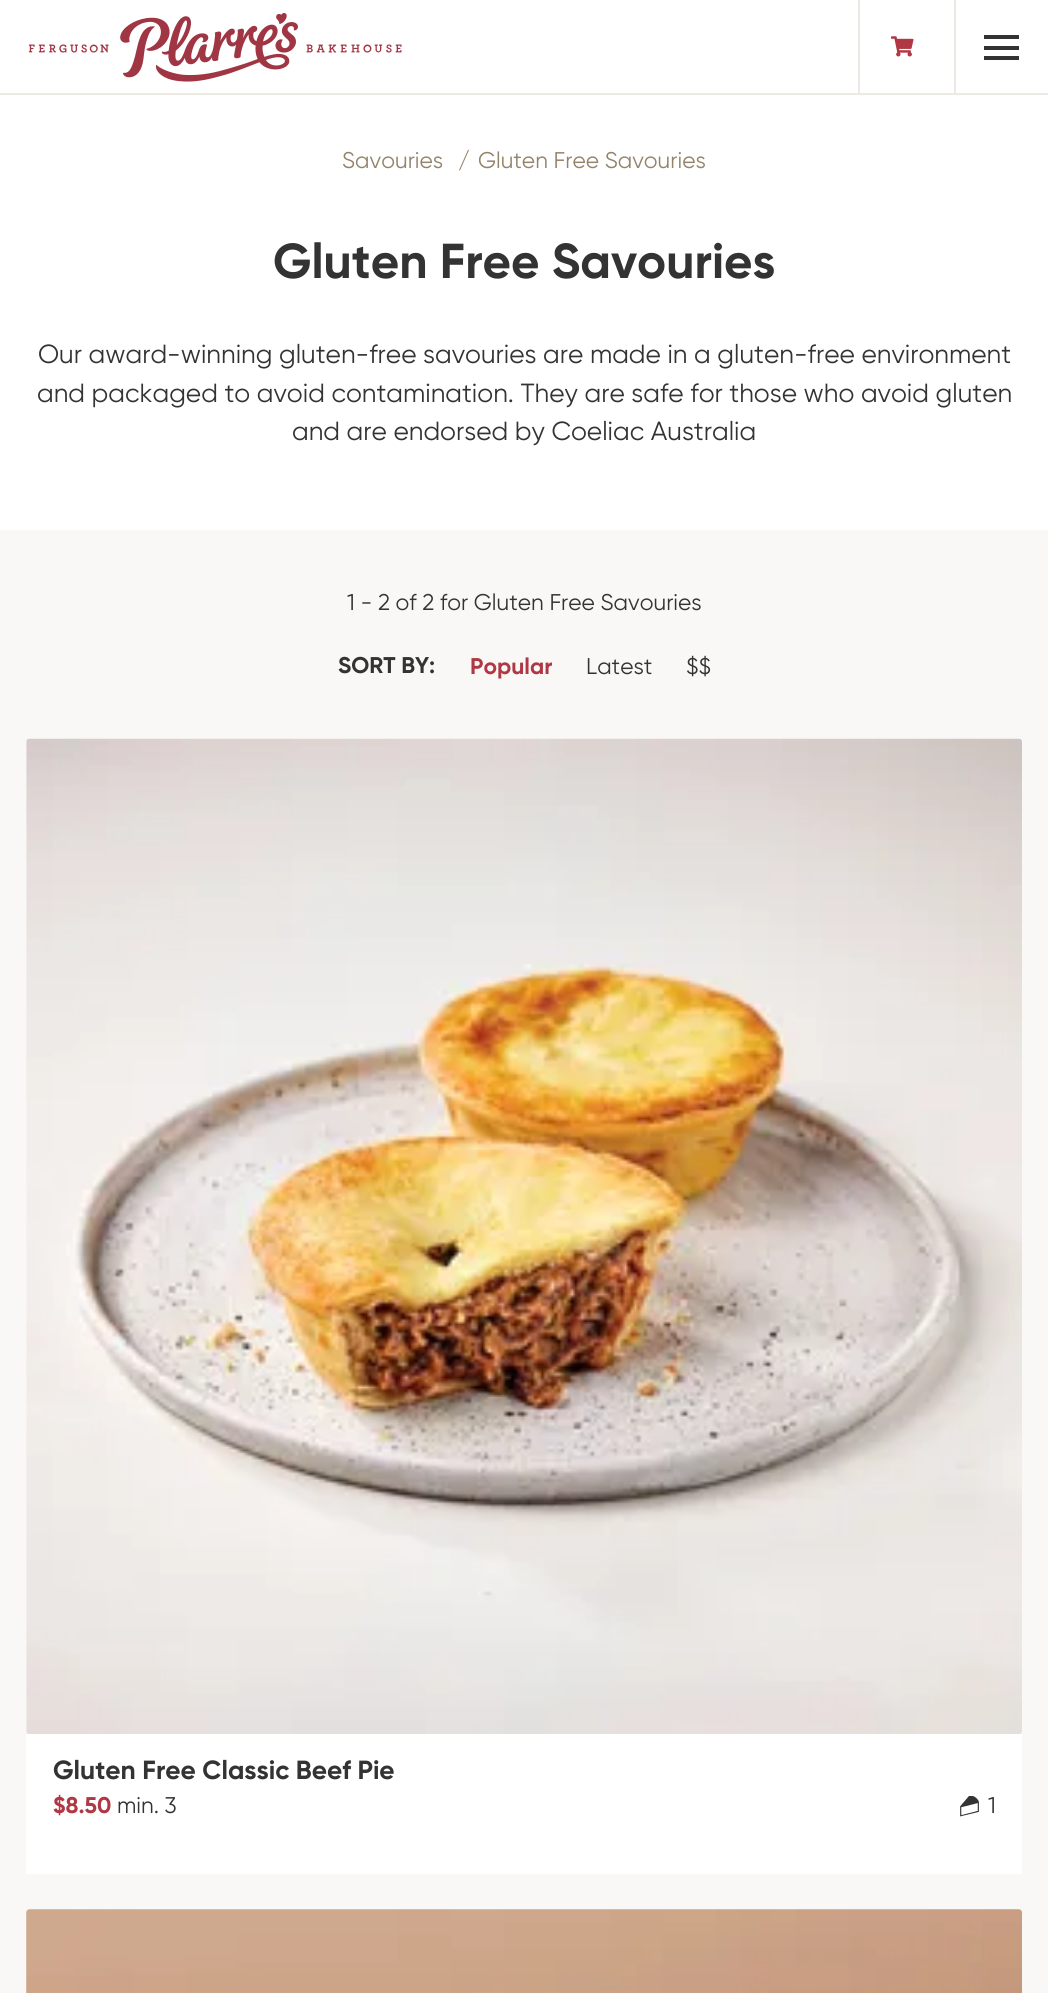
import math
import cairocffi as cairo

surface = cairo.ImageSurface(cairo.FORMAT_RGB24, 1048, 1993)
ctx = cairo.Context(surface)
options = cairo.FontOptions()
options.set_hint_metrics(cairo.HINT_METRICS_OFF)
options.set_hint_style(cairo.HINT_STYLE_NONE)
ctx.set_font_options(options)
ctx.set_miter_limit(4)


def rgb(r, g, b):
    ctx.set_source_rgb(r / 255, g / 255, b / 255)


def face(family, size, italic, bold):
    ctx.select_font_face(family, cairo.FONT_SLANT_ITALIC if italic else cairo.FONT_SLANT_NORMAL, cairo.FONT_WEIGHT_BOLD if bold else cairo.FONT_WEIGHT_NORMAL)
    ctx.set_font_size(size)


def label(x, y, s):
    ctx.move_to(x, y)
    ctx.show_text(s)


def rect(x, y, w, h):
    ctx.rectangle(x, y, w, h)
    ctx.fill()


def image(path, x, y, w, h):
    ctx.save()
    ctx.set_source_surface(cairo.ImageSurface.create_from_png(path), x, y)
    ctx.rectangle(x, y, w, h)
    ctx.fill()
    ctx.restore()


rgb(255, 255, 255)
ctx.paint()
rgb(237, 234, 228)
rect(0, 93, 1048, 2)
image('image0.png', 28, 12, 374, 70)
rect(858, 0, 2, 95)
image('image1.png', 891, 36, 23, 21)
rect(954, 0, 2, 95)
rgb(51, 51, 51)
rect(984, 35, 35, 4)
rect(984, 46, 35, 4)
rect(984, 56, 35, 4)
face('Gilroy', 22.75, 0, 0)
rgb(147, 131, 106)
label(342, 168, 'Savouries')
label(458, 168, '/')
label(478, 168, 'Gluten Free Savouries')
face('Gilroy', 49, 0, 1)
rgb(51, 51, 51)
label(273, 278, 'Gluten Free Savouries')
face('Gilroy', 26.25, 0, 0)
label(38, 363, 'Our award-winning gluten-free savouries are made in a gluten-free environment')
label(37, 402, 'and packaged to avoid contamination. They are safe for those who avoid gluten')
label(292, 440, 'and are endorsed by Coeliac Australia')
rgb(249, 248, 246)
rect(0, 530, 1048, 1463)
face('Gilroy', 22.75, 0, 0)
rgb(51, 51, 51)
label(347, 610, '1 - 2 of 2 for Gluten Free Savouries')
face('Gilroy', 22.75, 0, 1)
label(338, 673, 'SORT BY:')
rgb(176, 56, 68)
label(470, 674, 'Popular')
face('Gilroy', 22.75, 0, 0)
rgb(51, 51, 51)
label(586, 674, 'Latest')
label(686, 674, '$$')
image('image2.png', 26, 738, 996, 996)
rgb(255, 255, 255)
rect(26, 1734, 996, 140)
face('Gilroy', 26.25, 0, 1)
rgb(51, 51, 51)
label(53, 1779, 'Gluten Free Classic Beef Pie')
face('Gilroy', 22.75, 0, 1)
rgb(176, 56, 68)
label(53, 1813, '$8.50')
face('Gilroy', 22.75, 0, 0)
rgb(51, 51, 51)
label(117, 1813, 'min. 3')
image('image3.png', 960, 1796, 19, 21)
label(988, 1813, '1')
image('image4.png', 26, 1909, 996, 84)
surface.write_to_png('render.png')
